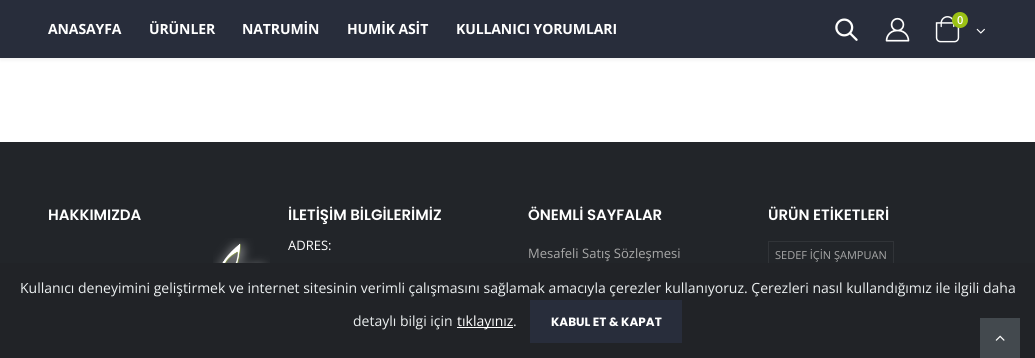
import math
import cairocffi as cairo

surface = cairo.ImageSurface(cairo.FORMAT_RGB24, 1035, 358)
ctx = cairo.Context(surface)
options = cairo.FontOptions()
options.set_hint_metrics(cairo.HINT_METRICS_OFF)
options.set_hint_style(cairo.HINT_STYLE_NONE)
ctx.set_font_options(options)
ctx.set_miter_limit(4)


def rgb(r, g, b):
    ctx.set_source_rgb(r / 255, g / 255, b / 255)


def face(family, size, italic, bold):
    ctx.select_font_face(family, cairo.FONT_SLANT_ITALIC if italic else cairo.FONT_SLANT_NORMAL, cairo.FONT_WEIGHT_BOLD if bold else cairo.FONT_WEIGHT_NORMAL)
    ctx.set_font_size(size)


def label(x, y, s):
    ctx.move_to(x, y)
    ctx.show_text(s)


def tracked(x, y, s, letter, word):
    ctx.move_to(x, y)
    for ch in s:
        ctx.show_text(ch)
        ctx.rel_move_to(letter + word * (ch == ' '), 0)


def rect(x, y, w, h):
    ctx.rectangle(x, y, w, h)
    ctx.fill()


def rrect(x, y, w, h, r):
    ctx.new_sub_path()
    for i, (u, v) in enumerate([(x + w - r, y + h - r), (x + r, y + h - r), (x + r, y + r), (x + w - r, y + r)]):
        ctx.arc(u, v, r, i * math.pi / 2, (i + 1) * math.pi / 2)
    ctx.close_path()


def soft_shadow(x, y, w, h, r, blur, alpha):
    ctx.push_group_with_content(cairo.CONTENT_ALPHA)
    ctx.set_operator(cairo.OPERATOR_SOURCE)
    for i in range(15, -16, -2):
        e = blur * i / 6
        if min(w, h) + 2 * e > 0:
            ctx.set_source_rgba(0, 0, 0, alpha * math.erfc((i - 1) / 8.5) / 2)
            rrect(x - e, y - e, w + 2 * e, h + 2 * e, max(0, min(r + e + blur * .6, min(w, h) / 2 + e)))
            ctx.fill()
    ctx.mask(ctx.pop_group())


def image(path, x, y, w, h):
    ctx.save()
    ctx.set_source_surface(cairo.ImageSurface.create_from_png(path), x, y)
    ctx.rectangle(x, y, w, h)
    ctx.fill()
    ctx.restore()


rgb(255, 255, 255)
ctx.paint()
rgb(0, 0, 0)
soft_shadow(0, 1, 1035, 58, 0, 2.5, 0.08)
rgb(40, 45, 59)
rect(0, 0, 1035, 58)
face('Open Sans', 14, 0, 1)
rgb(255, 255, 255)
tracked(48, 34, 'ANASAYFA', -0.1, 0)
tracked(149, 34, 'ÜRÜNLER', -0.1, 0)
tracked(242, 34, 'NATRUMİN', -0.1, 0)
tracked(347, 34, 'HUMİK ASİT', -0.1, 0)
tracked(456, 34, 'KULLANICI YORUMLARI', -0.1, 0)
image('image0.png', 835, 18, 23, 23)
image('image1.png', 885, 17, 25, 25)
image('image2.png', 935, 16, 25, 27)
rgb(155, 193, 21)
ctx.arc(960, 20, 8, 0, 2 * math.pi)
ctx.fill()
face('Open Sans SemiBold', 11, 0, 0)
rgb(255, 255, 255)
label(957, 24, '0')
image('image3.png', 976, 28, 9, 6)
rgb(34, 37, 41)
rect(0, 142, 1035, 121)
face('Poppins SemiBold', 15, 0, 0)
rgb(255, 255, 255)
label(48, 220, 'HAKKIMIZDA')
image('image4.png', 213, 238, 57, 25)
label(288, 220, 'İLETİŞİM BİLGİLERİMİZ')
face('Open Sans', 13, 0, 0)
label(288, 250, 'ADRES:')
face('Poppins SemiBold', 15, 0, 0)
label(528, 220, 'ÖNEMLİ SAYFALAR')
face('Open Sans', 13, 0, 0)
rgb(168, 168, 168)
label(528, 258, 'Mesafeli Satış Sözleşmesi')
face('Poppins SemiBold', 15, 0, 0)
rgb(255, 255, 255)
label(768, 220, 'ÜRÜN ETİKETLERİ')
ctx.rectangle(768.5, 241.5, 125, 25)
rgb(49, 52, 56)
ctx.set_line_width(1)
ctx.stroke()
face('Open Sans', 11, 0, 0)
rgb(168, 168, 168)
label(775, 259, 'SEDEF İÇİN ŞAMPUAN')
rgb(33, 35, 39)
rect(0, 263, 1035, 95)
face('Open Sans', 14, 0, 0)
rgb(236, 240, 241)
label(20, 293, 'Kullanıcı deneyimini geliştirmek ve internet sitesinin verimli çalışmasını sağlamak amacıyla çerezler kullanıyoruz. Çerezleri nasıl kullandığımız ile ilgili daha')
label(353, 326, 'detaylı bilgi için')
rgb(255, 255, 255)
rect(457, 327, 56, 1)
label(457, 326, 'tıklayınız')
rgb(236, 240, 241)
label(513, 326, '.')
rgb(40, 45, 59)
rect(530, 300, 152, 43)
face('Poppins', 12, 0, 1)
rgb(255, 255, 255)
label(551, 326, 'KABUL ET & KAPAT')
rgb(67, 73, 78)
rect(980, 318, 40, 40)
image('image5.png', 995, 335, 10, 6)
surface.write_to_png('render.png')
